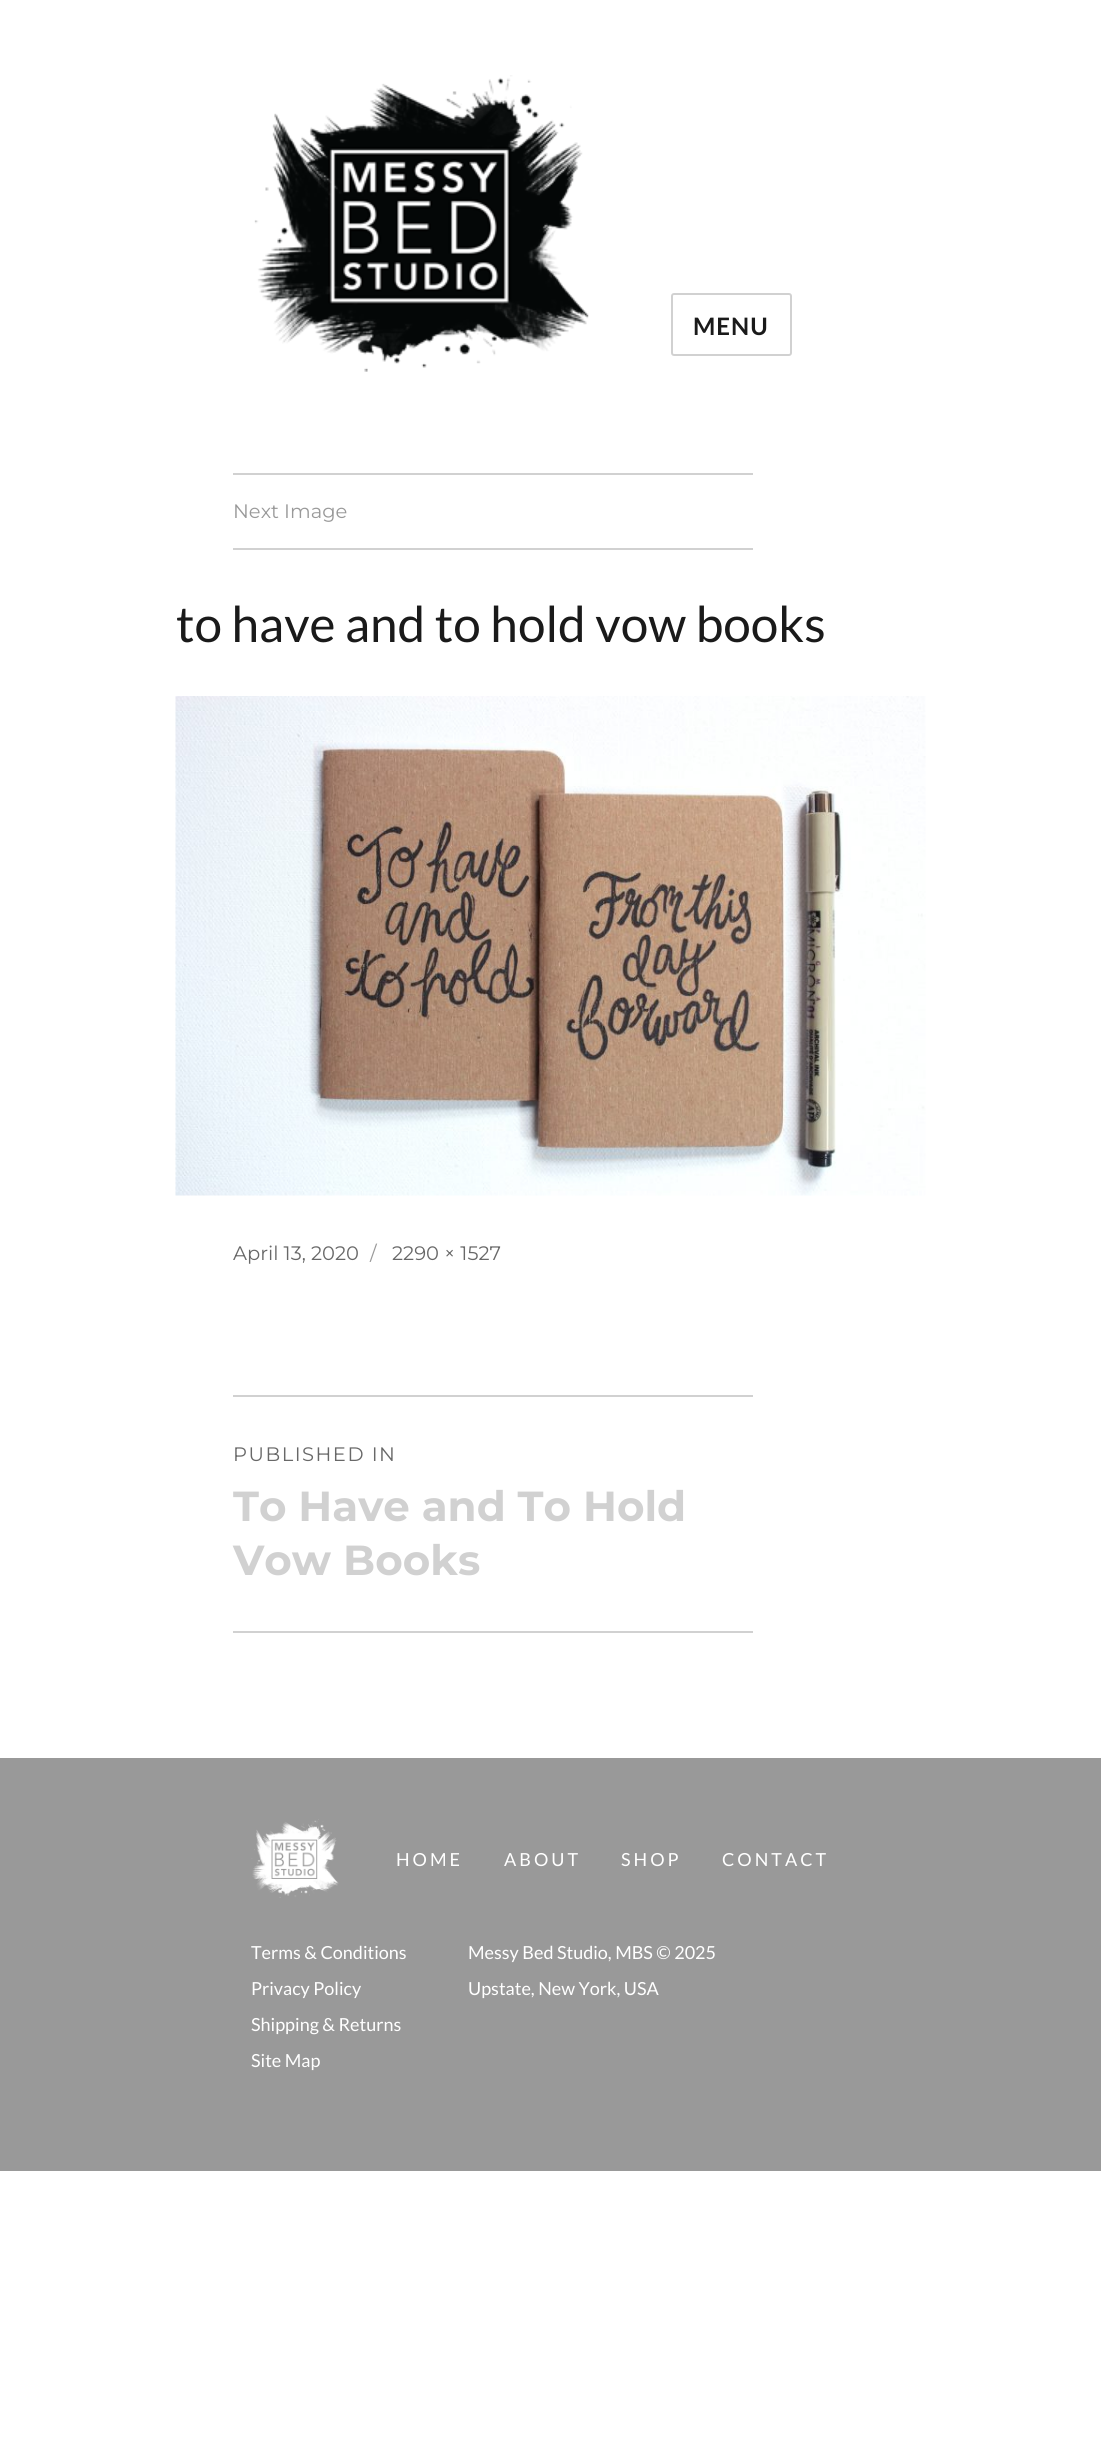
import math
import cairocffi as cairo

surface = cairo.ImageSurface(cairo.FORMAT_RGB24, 1101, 2438)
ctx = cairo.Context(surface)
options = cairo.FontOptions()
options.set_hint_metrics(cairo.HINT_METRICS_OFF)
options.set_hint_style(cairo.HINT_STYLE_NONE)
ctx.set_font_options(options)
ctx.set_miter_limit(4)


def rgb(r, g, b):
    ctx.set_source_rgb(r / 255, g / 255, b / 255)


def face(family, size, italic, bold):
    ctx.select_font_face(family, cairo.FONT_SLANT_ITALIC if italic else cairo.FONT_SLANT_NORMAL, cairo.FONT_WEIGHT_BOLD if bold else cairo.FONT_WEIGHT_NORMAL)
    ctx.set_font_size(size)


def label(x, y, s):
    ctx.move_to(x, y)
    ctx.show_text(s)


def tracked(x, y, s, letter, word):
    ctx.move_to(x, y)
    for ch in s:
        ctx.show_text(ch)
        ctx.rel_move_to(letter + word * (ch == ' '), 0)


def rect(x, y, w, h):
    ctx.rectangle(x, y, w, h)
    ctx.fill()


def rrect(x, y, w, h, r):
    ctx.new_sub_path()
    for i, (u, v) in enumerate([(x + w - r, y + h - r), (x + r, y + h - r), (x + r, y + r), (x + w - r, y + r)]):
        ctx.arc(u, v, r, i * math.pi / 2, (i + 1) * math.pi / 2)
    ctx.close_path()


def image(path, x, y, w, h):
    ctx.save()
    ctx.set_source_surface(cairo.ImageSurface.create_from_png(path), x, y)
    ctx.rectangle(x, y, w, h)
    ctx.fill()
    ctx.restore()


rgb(255, 255, 255)
ctx.paint()
image('image0.png', 254, 75, 335, 297)
rrect(672, 294, 119, 61, 2)
rgb(209, 209, 209)
ctx.stroke()
face('Lato', 24, 0, 1)
rgb(26, 26, 26)
tracked(693, 335, 'MENU', 1, 0)
rgb(209, 209, 209)
rect(233, 473, 520, 2)
rect(233, 548, 520, 2)
face('Montserrat Thin', 19.5, 0, 0)
rgb(153, 153, 153)
label(233, 518, 'Next Image')
face('Lato', 49.5, 0, 0)
rgb(26, 26, 26)
label(176, 642, 'to have and to hold vow books')
image('image1.png', 175, 696, 751, 500)
face('Montserrat Thin', 19.5, 0, 0)
rgb(104, 104, 104)
label(233, 1260, 'April 13, 2020')
rgb(153, 153, 153)
label(370, 1260, '/')
rgb(104, 104, 104)
label(392, 1260, '2290 × 1527')
rgb(209, 209, 209)
rect(233, 1395, 520, 2)
rect(233, 1631, 520, 2)
rgb(104, 104, 104)
tracked(233, 1461, 'PUBLISHED IN', 1.5, 0)
face('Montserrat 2 Thin', 42, 0, 0)
rgb(209, 209, 209)
label(233, 1521, 'To Have and To Hold')
label(233, 1575, 'Vow Books')
rgb(153, 153, 153)
rect(0, 1758, 1101, 413)
image('image2.png', 251, 1819, 88, 79)
face('Lato', 18, 0, 0)
rgb(255, 255, 255)
tracked(396, 1866, 'HOME', 3, 0)
tracked(504, 1866, 'ABOUT', 3, 0)
tracked(621, 1866, 'SHOP', 3, 0)
tracked(722, 1866, 'CONTACT', 3, 0)
label(251, 1959, 'Terms & Conditions')
label(251, 1995, 'Privacy Policy')
label(251, 2031, 'Shipping & Returns')
label(251, 2067, 'Site Map')
label(468, 1959, 'Messy Bed Studio, MBS © 2025')
label(468, 1995, 'Upstate, New York, USA')
surface.write_to_png('render.png')
